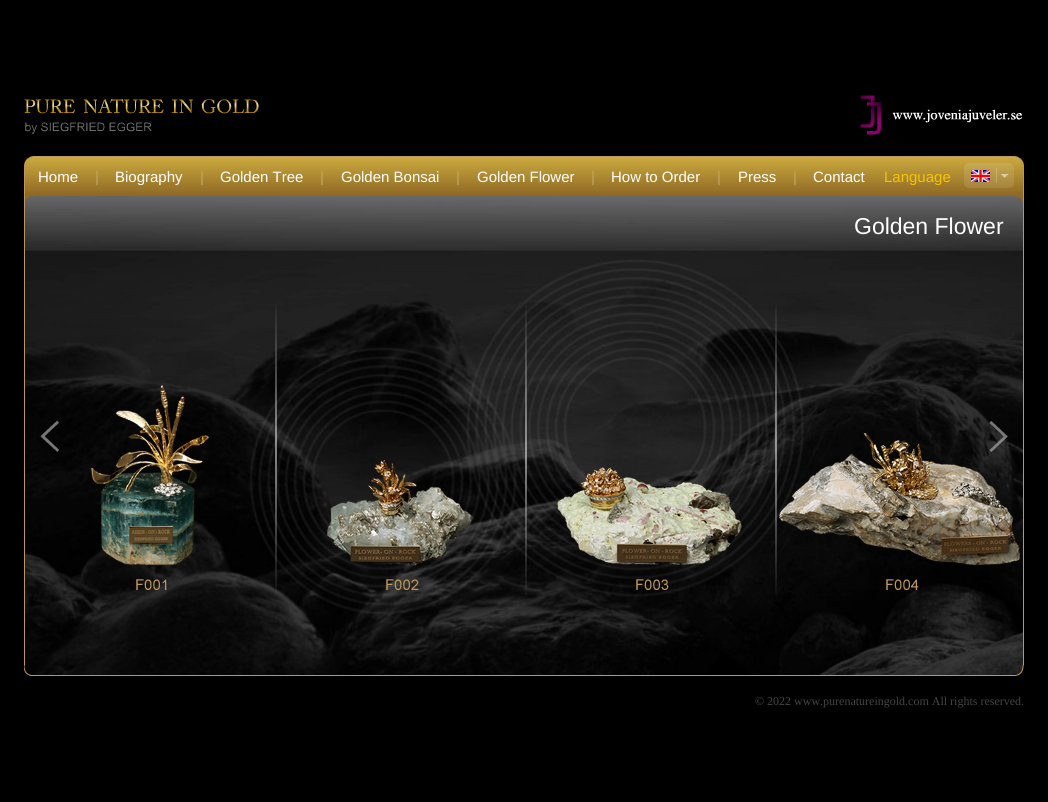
import math
import cairocffi as cairo

surface = cairo.ImageSurface(cairo.FORMAT_RGB24, 1048, 802)
ctx = cairo.Context(surface)
options = cairo.FontOptions()
options.set_hint_metrics(cairo.HINT_METRICS_OFF)
options.set_hint_style(cairo.HINT_STYLE_NONE)
ctx.set_font_options(options)
ctx.set_miter_limit(4)


def rgb(r, g, b):
    ctx.set_source_rgb(r / 255, g / 255, b / 255)


def face(family, size, italic, bold):
    ctx.select_font_face(family, cairo.FONT_SLANT_ITALIC if italic else cairo.FONT_SLANT_NORMAL, cairo.FONT_WEIGHT_BOLD if bold else cairo.FONT_WEIGHT_NORMAL)
    ctx.set_font_size(size)


def label(x, y, s):
    ctx.move_to(x, y)
    ctx.show_text(s)


def image(path, x, y, w, h):
    ctx.save()
    ctx.set_source_surface(cairo.ImageSurface.create_from_png(path), x, y)
    ctx.rectangle(x, y, w, h)
    ctx.fill()
    ctx.restore()


rgb(0, 0, 0)
ctx.paint()
image('image0.png', 24, 99, 235, 35)
image('image1.png', 860, 95, 163, 40)
image('image2.png', 24, 156, 10, 40)
image('image3.png', 34, 156, 850, 40)
face('Liberation Sans', 15, 0, 0)
rgb(255, 255, 255)
label(38, 182, 'Home')
rgb(193, 166, 99)
label(95, 182, '|')
rgb(255, 255, 255)
label(115, 182, 'Biography')
rgb(193, 166, 99)
label(200, 182, '|')
rgb(255, 255, 255)
label(220, 182, 'Golden Tree')
rgb(193, 166, 99)
label(320, 182, '|')
rgb(255, 255, 255)
label(341, 182, 'Golden Bonsai')
rgb(193, 166, 99)
label(456, 182, '|')
rgb(255, 255, 255)
label(477, 182, 'Golden Flower')
rgb(193, 166, 99)
label(591, 182, '|')
rgb(255, 255, 255)
label(611, 182, 'How to Order')
rgb(193, 166, 99)
label(717, 182, '|')
rgb(255, 255, 255)
label(738, 182, 'Press')
rgb(193, 166, 99)
label(793, 182, '|')
rgb(255, 255, 255)
label(813, 182, 'Contact')
image('image4.png', 884, 156, 80, 40)
rgb(244, 196, 0)
label(884, 182, 'Language')
image('image5.png', 964, 156, 50, 40)
image('image6.png', 971, 170, 19, 12)
image('image7.png', 1014, 156, 10, 40)
image('image8.png', 24, 196, 1000, 480)
face('Liberation Sans', 23, 0, 0)
rgb(255, 255, 255)
label(854, 234, 'Golden Flower')
image('image9.png', 90, 385, 119, 205)
image('image10.png', 275, 305, 199, 290)
image('image11.png', 525, 305, 217, 290)
image('image12.png', 775, 305, 245, 290)
face('Liberation Serif', 12, 0, 0)
rgb(68, 68, 68)
label(755, 705, '© 2022 www.purenatureingold.com All rights reserved.')
surface.write_to_png('render.png')
